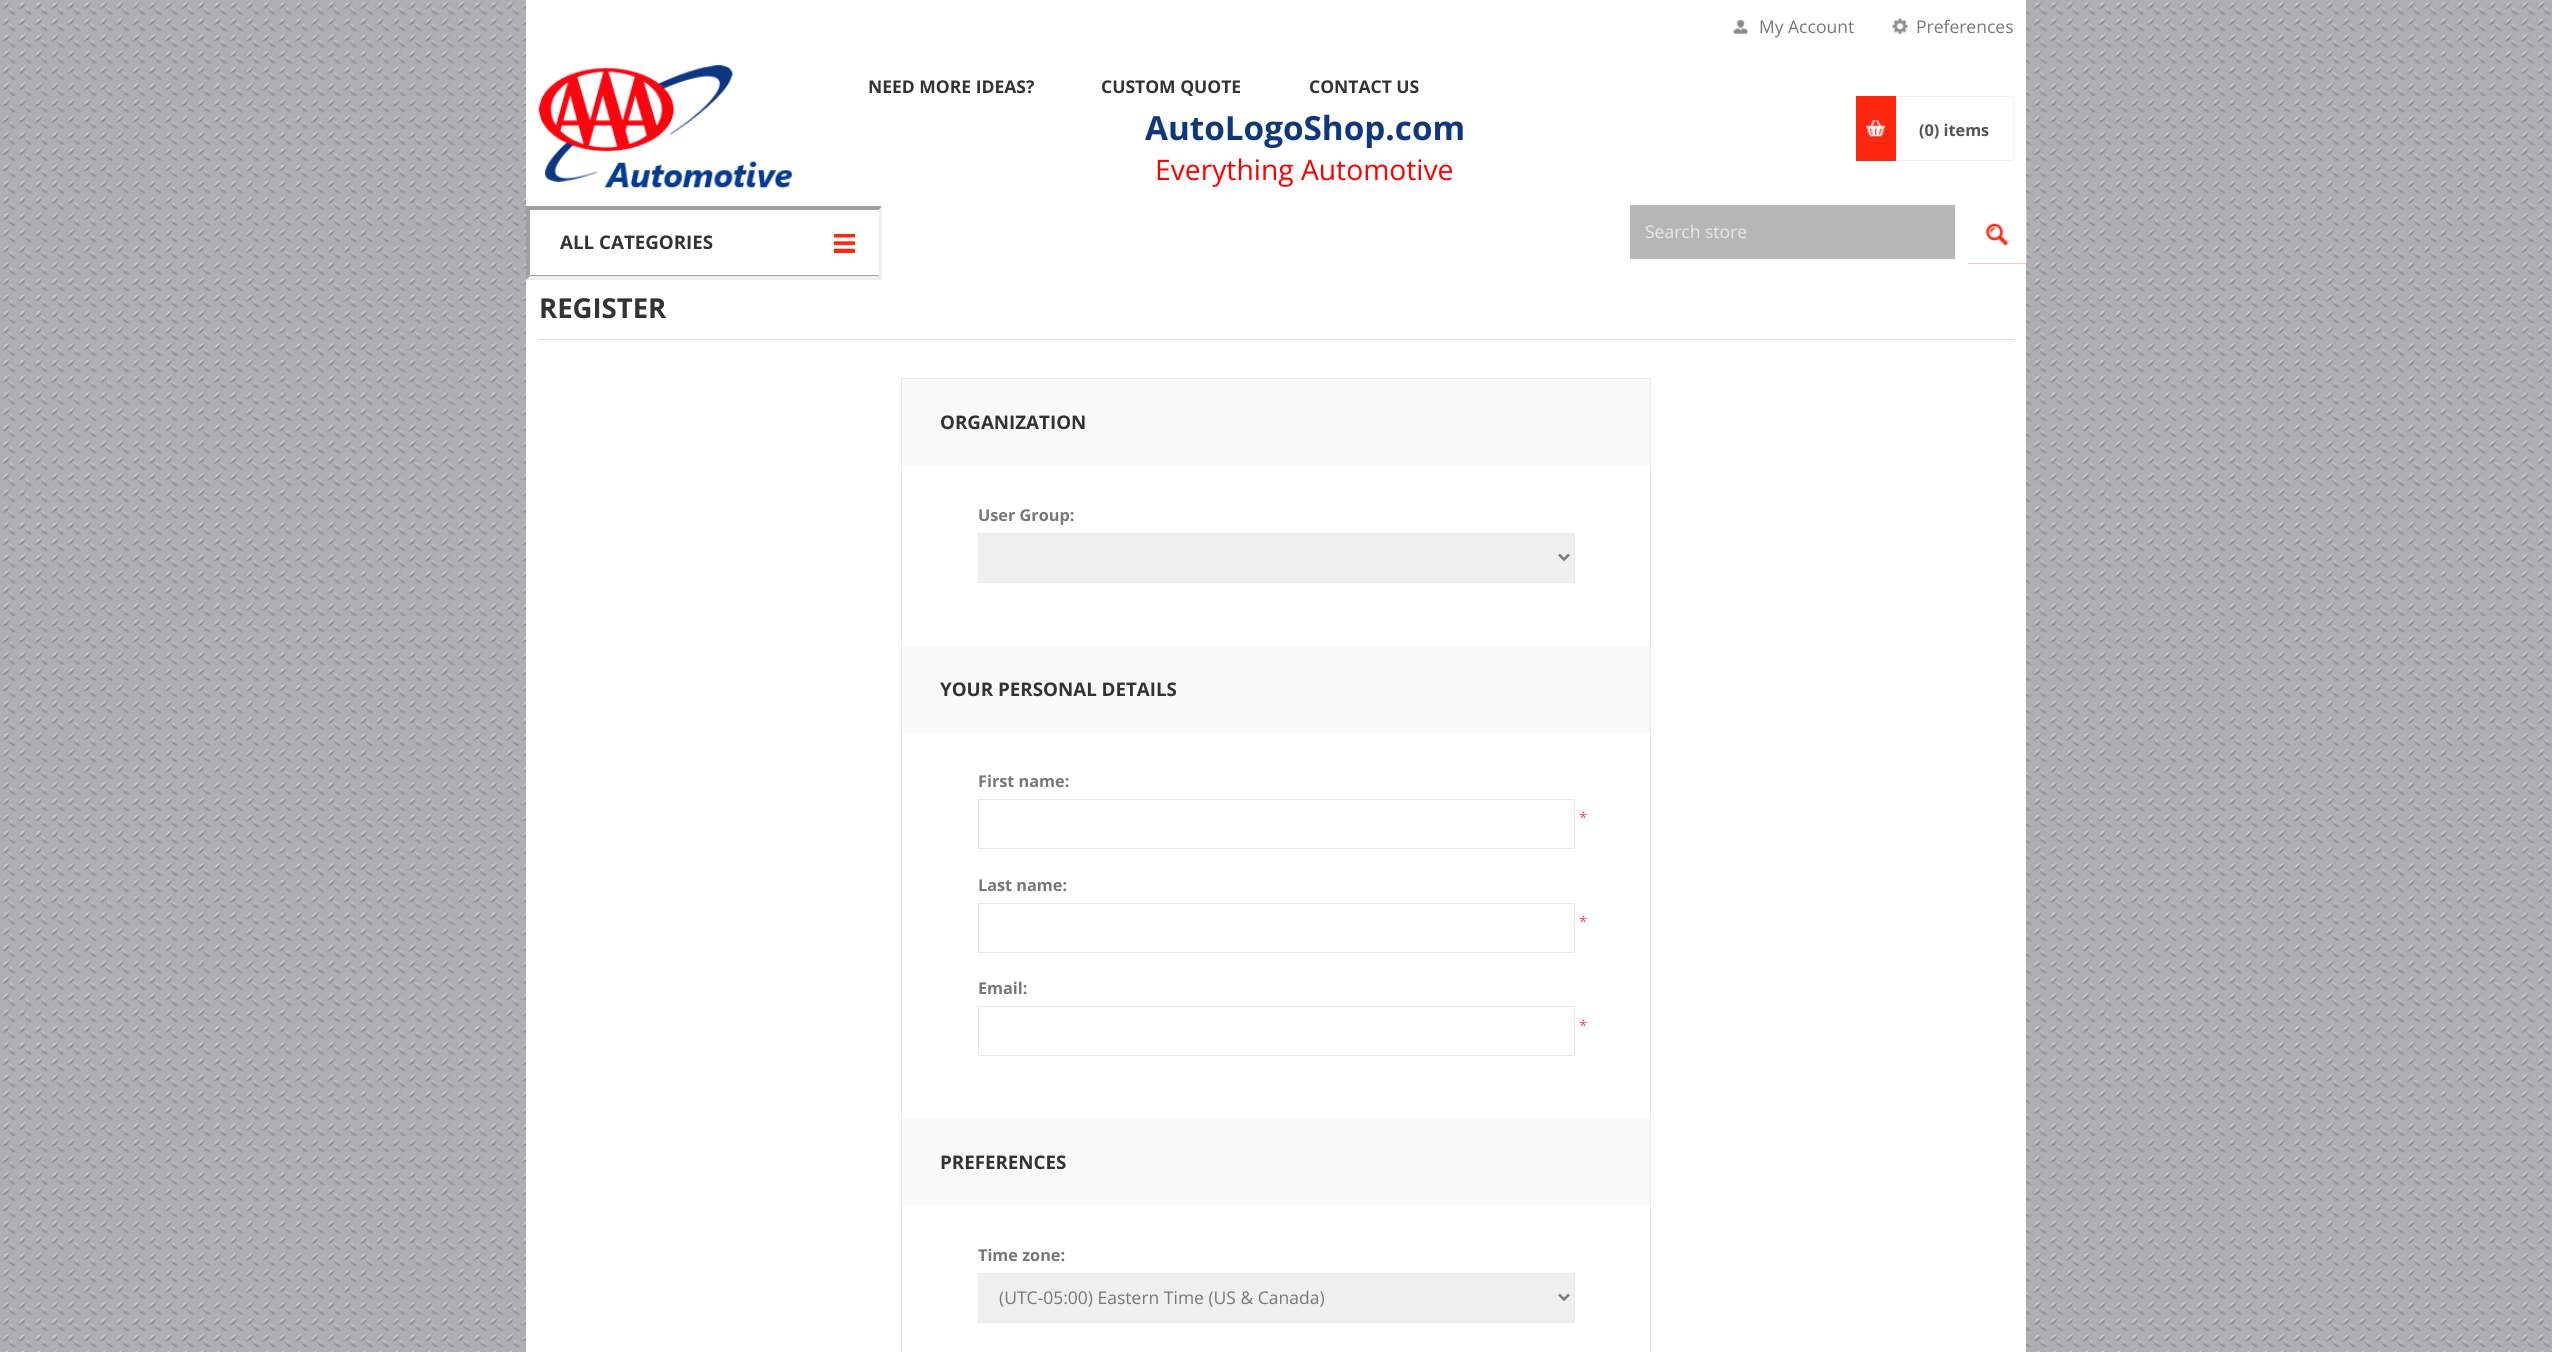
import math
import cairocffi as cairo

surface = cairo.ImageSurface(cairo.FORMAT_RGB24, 2552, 1352)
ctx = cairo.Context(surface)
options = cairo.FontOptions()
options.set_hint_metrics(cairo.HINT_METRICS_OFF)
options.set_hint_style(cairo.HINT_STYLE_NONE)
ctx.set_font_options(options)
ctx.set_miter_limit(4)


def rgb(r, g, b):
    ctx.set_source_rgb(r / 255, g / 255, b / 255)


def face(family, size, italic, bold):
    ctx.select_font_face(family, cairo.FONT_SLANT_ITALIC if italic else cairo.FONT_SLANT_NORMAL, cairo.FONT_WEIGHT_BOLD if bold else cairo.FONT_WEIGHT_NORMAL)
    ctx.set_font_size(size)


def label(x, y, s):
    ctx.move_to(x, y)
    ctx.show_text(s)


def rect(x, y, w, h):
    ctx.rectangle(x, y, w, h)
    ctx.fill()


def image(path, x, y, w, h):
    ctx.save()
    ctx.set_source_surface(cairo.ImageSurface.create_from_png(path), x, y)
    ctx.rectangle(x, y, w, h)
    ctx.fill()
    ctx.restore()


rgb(255, 255, 255)
ctx.paint()
image('image0.png', 0, 0, 2552, 1352)
rgb(255, 255, 255)
rect(526, 0, 1500, 205)
image('image1.png', 1733, 19, 15, 15)
face('Open Sans', 17.5, 0, 0)
rgb(119, 119, 119)
label(1759, 33, 'My Account')
image('image2.png', 1892, 18, 16, 16)
label(1916, 33, 'Preferences')
image('image3.png', 538, 65, 255, 123)
face('Open Sans', 17.5, 0, 1)
rgb(51, 51, 51)
label(868, 93, 'NEED MORE IDEAS?')
label(1101, 93, 'CUSTOM QUOTE')
label(1309, 93, 'CONTACT US')
face('Open Sans', 33.25, 0, 1)
rgb(14, 55, 126)
label(1145, 140, 'AutoLogoShop.com')
face('Open Sans', 28.25, 0, 0)
rgb(255, 0, 0)
label(1155, 180, 'Everything Automotive')
ctx.rectangle(1895.5, 96.5, 118, 64)
rgb(240, 240, 240)
ctx.set_line_width(1)
ctx.stroke()
rgb(253, 38, 14)
rect(1856, 96, 40, 65)
image('image4.png', 1866, 120, 19, 17)
face('Open Sans', 16.25, 0, 1)
rgb(85, 85, 85)
label(1919, 136, '(0) items')
rgb(255, 255, 255)
rect(526, 205, 1442, 59)
rgb(183, 182, 182)
rect(1630, 205, 325, 54)
face('Open Sans', 17.5, 0, 0)
rgb(233, 233, 233)
label(1645, 238, 'Search store')
rgb(253, 38, 14)
rect(1968, 223, 58, 41)
image('image5.png', 1968, 205, 59, 59)
rgb(255, 255, 255)
rect(526, 264, 1500, 1088)
rgb(159, 159, 159)
ctx.new_path()
ctx.move_to(526, 272)
ctx.line_to(882, 272)
ctx.line_to(879, 276)
ctx.line_to(530, 276)
ctx.close_path()
ctx.fill()
rgb(238, 238, 238)
ctx.new_path()
ctx.move_to(882.5, 272.5)
ctx.line_to(882.5, 280)
ctx.line_to(879, 276)
ctx.close_path()
ctx.fill()
rgb(255, 255, 255)
rect(530, 272, 353, 3)
rgb(159, 159, 159)
ctx.new_path()
ctx.move_to(526, 206)
ctx.line_to(882, 206)
ctx.line_to(879, 210)
ctx.line_to(530, 210)
ctx.close_path()
ctx.fill()
rgb(238, 238, 238)
ctx.new_path()
ctx.move_to(882, 206)
ctx.line_to(882, 275)
ctx.line_to(879, 275)
ctx.line_to(879, 210)
ctx.close_path()
ctx.fill()
ctx.new_path()
ctx.move_to(882, 280)
ctx.line_to(526, 280)
ctx.line_to(530, 276)
ctx.line_to(879, 276)
ctx.close_path()
ctx.fill()
rgb(159, 159, 159)
ctx.new_path()
ctx.move_to(526, 280)
ctx.line_to(526, 272.5)
ctx.line_to(530, 276)
ctx.close_path()
ctx.fill()
rect(526, 206, 4, 69)
face('Open Sans', 18.75, 0, 1)
rgb(51, 51, 51)
label(560, 249, 'ALL CATEGORIES')
rgb(253, 38, 14)
rect(834, 234, 21, 19)
image('image6.png', 834, 237, 21, 12)
rgb(221, 221, 221)
rect(539, 339, 1475, 1)
face('Open Sans', 27.5, 0, 1)
rgb(51, 51, 51)
label(539, 318, 'REGISTER')
ctx.rectangle(901.5, 378.5, 749, 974)
rgb(233, 233, 233)
ctx.stroke()
rgb(249, 249, 249)
rect(903, 379, 747, 87)
face('Open Sans', 18.75, 0, 1)
rgb(51, 51, 51)
label(940, 429, 'ORGANIZATION')
face('Open Sans', 16.25, 0, 1)
rgb(119, 119, 119)
label(978, 521, 'User Group:')
rgb(239, 239, 239)
ctx.rectangle(978.5, 533.5, 596, 49)
ctx.fill_preserve()
rgb(233, 233, 233)
ctx.stroke()
ctx.new_path()
ctx.move_to(1559, 554.5)
ctx.line_to(1564, 559.5)
ctx.line_to(1569, 554.5)
rgb(119, 119, 119)
ctx.set_line_width(2.5)
ctx.stroke()
rgb(249, 249, 249)
rect(903, 645, 747, 88)
face('Open Sans', 18.75, 0, 1)
rgb(51, 51, 51)
label(940, 696, 'YOUR PERSONAL DETAILS')
face('Open Sans', 16.25, 0, 1)
rgb(119, 119, 119)
label(978, 787, 'First name:')
ctx.rectangle(978.5, 799.5, 596, 49)
rgb(233, 233, 233)
ctx.set_line_width(1)
ctx.stroke()
face('Open Sans', 15, 0, 0)
rgb(247, 66, 88)
label(1579, 823, '*')
face('Open Sans', 16.25, 0, 1)
rgb(119, 119, 119)
label(978, 891, 'Last name:')
ctx.rectangle(978.5, 903.5, 596, 49)
rgb(233, 233, 233)
ctx.stroke()
face('Open Sans', 15, 0, 0)
rgb(247, 66, 88)
label(1579, 927, '*')
face('Open Sans', 16.25, 0, 1)
rgb(119, 119, 119)
label(978, 994, 'Email:')
ctx.rectangle(978.5, 1006.5, 596, 49)
rgb(233, 233, 233)
ctx.stroke()
face('Open Sans', 15, 0, 0)
rgb(247, 66, 88)
label(1579, 1031, '*')
rgb(249, 249, 249)
rect(903, 1119, 747, 87)
face('Open Sans', 18.75, 0, 1)
rgb(51, 51, 51)
label(940, 1169, 'PREFERENCES')
face('Open Sans', 16.25, 0, 1)
rgb(119, 119, 119)
label(978, 1261, 'Time zone:')
rgb(239, 239, 239)
ctx.rectangle(978.5, 1273.5, 596, 49)
ctx.fill_preserve()
rgb(233, 233, 233)
ctx.stroke()
ctx.new_path()
ctx.move_to(1559, 1294.5)
ctx.line_to(1564, 1299.5)
ctx.line_to(1569, 1294.5)
rgb(119, 119, 119)
ctx.set_line_width(2.5)
ctx.stroke()
face('Open Sans', 17.5, 0, 0)
label(999, 1304, '(UTC-05:00) Eastern Time (US & Canada)')
surface.write_to_png('render.png')
